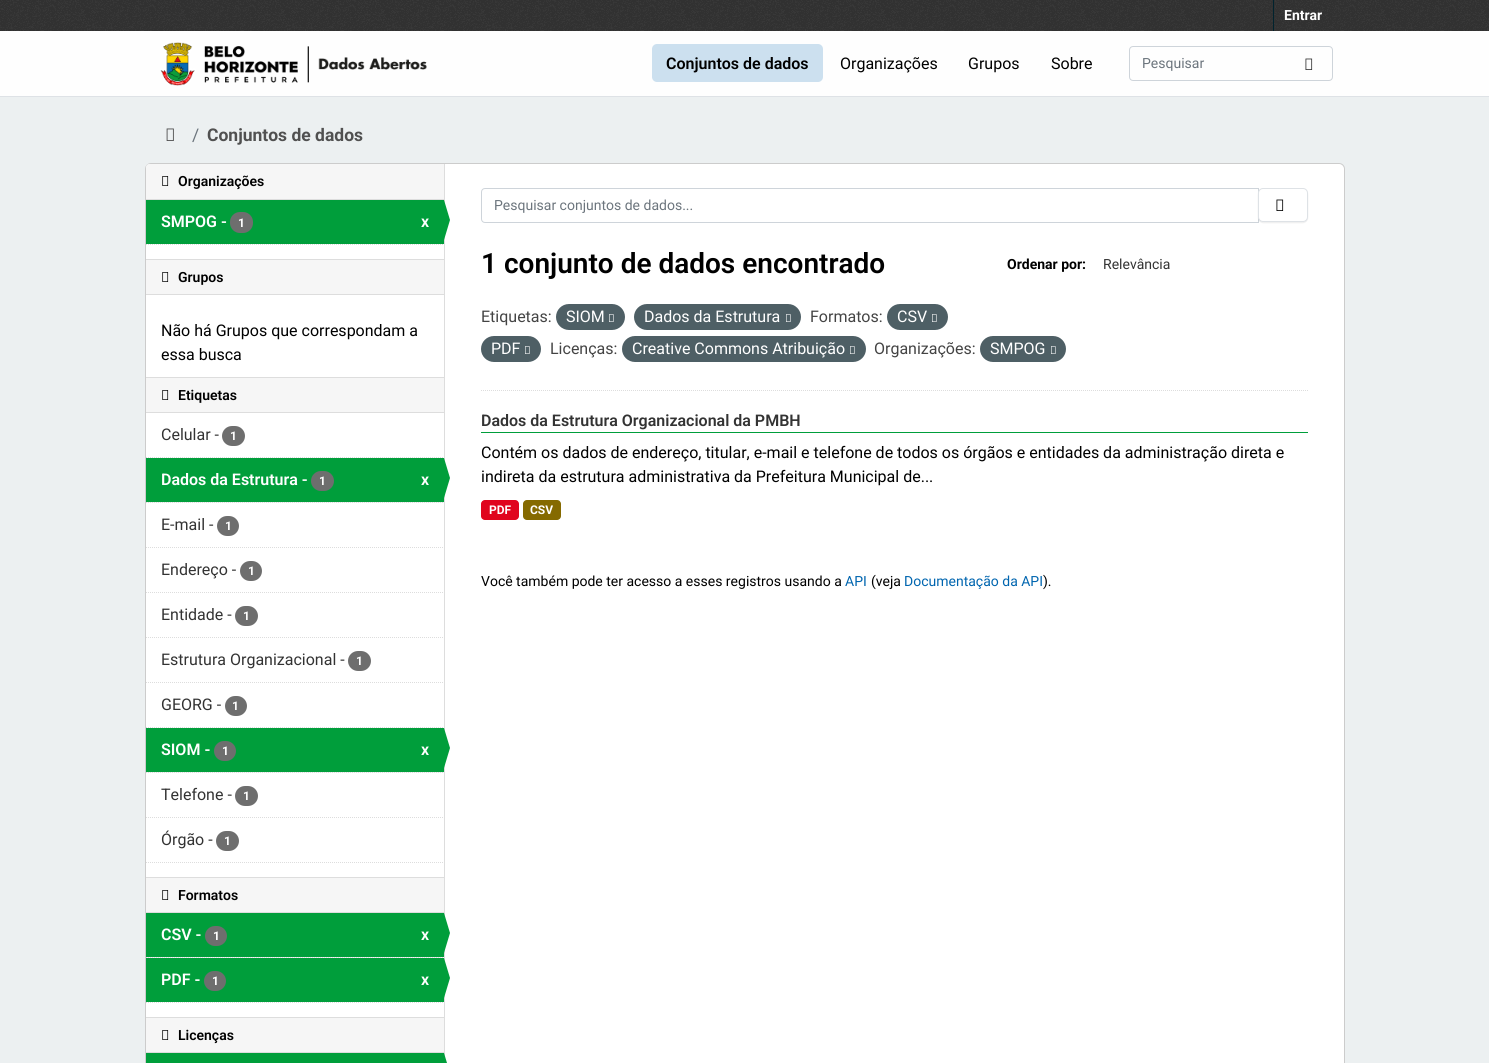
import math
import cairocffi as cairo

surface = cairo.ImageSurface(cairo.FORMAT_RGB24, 1489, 1063)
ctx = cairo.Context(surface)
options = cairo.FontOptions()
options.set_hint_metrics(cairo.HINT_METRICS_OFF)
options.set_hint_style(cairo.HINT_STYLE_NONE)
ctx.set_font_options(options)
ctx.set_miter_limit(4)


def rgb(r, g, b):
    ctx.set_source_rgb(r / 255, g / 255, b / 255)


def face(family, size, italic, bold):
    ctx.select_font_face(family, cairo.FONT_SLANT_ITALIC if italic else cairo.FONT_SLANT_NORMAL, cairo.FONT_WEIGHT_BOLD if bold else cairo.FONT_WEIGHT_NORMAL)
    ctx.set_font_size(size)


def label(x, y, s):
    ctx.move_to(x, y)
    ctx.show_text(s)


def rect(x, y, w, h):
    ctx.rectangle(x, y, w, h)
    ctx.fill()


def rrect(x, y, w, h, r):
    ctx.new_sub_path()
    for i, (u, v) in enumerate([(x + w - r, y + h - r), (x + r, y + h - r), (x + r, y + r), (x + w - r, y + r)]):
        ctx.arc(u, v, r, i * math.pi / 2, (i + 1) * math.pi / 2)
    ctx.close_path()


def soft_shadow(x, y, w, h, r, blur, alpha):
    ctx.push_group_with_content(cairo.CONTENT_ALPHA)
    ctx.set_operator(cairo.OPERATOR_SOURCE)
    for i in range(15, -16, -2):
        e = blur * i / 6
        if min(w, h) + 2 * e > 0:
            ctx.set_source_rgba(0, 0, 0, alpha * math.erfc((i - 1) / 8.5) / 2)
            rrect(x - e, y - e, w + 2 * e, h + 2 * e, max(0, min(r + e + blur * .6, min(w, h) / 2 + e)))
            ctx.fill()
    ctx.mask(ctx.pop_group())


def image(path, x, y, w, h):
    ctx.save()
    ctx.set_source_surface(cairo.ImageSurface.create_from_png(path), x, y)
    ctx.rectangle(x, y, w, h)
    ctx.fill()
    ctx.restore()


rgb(236, 240, 241)
ctx.paint()
rgb(51, 51, 51)
rect(0, 0, 1489, 31)
image('image0.png', 0, 0, 1489, 31)
rgb(0, 35, 46)
rect(1273, 0, 1, 31)
face('Roboto', 14, 0, 1)
rgb(255, 255, 255)
label(1284, 20, 'Entrar')
rgb(254, 254, 254)
rect(0, 31, 1489, 65)
rgb(222, 226, 230)
rect(0, 96, 1489, 1)
image('image1.png', 160, 42, 267, 44)
rgb(204, 224, 239)
rrect(652, 44, 171, 38, 5)
ctx.fill()
face('Roboto SemiBold', 16, 0, 0)
rgb(0, 0, 0)
label(666, 69, 'Conjuntos de dados')
face('Roboto', 16, 0, 0)
label(840, 69, 'Organizações')
label(968, 69, 'Grupos')
label(1051, 69, 'Sobre')
rrect(1129.5, 46.5, 203, 34, 3.5)
rgb(206, 212, 218)
ctx.set_line_width(1)
ctx.stroke()
face('Roboto', 14, 0, 0)
rgb(108, 117, 125)
label(1142, 68, 'Pesquisar')
image('image2.png', 1305, 58, 8, 12)
image('image3.png', 166, 128, 8, 13)
face('Roboto', 17.5, 0, 0)
label(192, 141, '/')
face('Roboto', 17.5, 0, 1)
rgb(80, 80, 80)
label(207, 141, 'Conjuntos de dados')
rgb(255, 255, 255)
rrect(145.5, 163.5, 1199, 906, 5.5)
ctx.fill_preserve()
rgb(204, 204, 204)
ctx.stroke()
rgb(246, 246, 246)
ctx.new_path()
ctx.move_to(149, 164)
ctx.line_to(444, 164)
ctx.line_to(444, 200)
ctx.line_to(146, 200)
ctx.line_to(146, 167)
ctx.curve_to(146, 165.5, 147.5, 164, 149, 164)
ctx.close_path()
ctx.fill()
rgb(221, 221, 221)
rect(146, 199, 298, 1)
image('image4.png', 162, 176, 7, 10)
face('Roboto SemiBold', 14, 0, 0)
rgb(0, 0, 0)
label(178, 186, 'Organizações')
rgb(0, 158, 59)
rect(146, 200, 298, 44)
face('Roboto SemiBold', 16, 0, 0)
rgb(255, 255, 255)
label(161, 227, 'SMPOG -')
rgb(110, 110, 110)
rrect(230, 212, 23, 21, 10)
ctx.fill()
face('Roboto', 12, 0, 1)
rgb(255, 255, 255)
label(238, 227, '1')
face('Roboto SemiBold', 16, 0, 0)
label(421, 227, 'x')
rgb(221, 221, 221)
rect(444, 164, 1, 899)
rgb(0, 158, 59)
ctx.new_path()
ctx.move_to(444, 240)
ctx.line_to(444, 200)
ctx.line_to(450, 220)
ctx.close_path()
ctx.fill()
ctx.new_path()
ctx.move_to(146, 244.5)
ctx.line_to(444, 244.5)
rgb(221, 221, 221)
ctx.set_dash([1, 1])
ctx.stroke()
rgb(246, 246, 246)
rect(146, 260, 298, 34)
rgb(221, 221, 221)
rect(146, 259, 298, 1)
rect(146, 294, 298, 1)
image('image4.png', 162, 272, 7, 10)
face('Roboto SemiBold', 14, 0, 0)
rgb(0, 0, 0)
label(178, 282, 'Grupos')
face('Roboto', 16, 0, 0)
label(161, 336, 'Não há Grupos que correspondam a')
label(161, 360, 'essa busca')
rgb(246, 246, 246)
rect(146, 378, 298, 34)
rgb(221, 221, 221)
rect(146, 377, 298, 1)
rect(146, 412, 298, 1)
image('image4.png', 162, 390, 7, 10)
face('Roboto SemiBold', 14, 0, 0)
rgb(0, 0, 0)
label(178, 400, 'Etiquetas')
ctx.new_path()
ctx.move_to(146, 457.5)
ctx.line_to(444, 457.5)
rgb(221, 221, 221)
ctx.stroke()
face('Roboto', 16, 0, 0)
rgb(51, 51, 51)
label(161, 440, 'Celular -')
rgb(110, 110, 110)
rrect(222, 426, 23, 20, 10)
ctx.fill()
face('Roboto', 12, 0, 1)
rgb(255, 255, 255)
label(230, 440, '1')
rgb(246, 246, 246)
rect(147, 502, 297, 1)
ctx.new_path()
ctx.move_to(146, 502.5)
ctx.line_to(444, 502.5)
rgb(221, 221, 221)
ctx.stroke()
rgb(0, 158, 59)
rect(146, 458, 298, 44)
face('Roboto SemiBold', 16, 0, 0)
rgb(255, 255, 255)
label(161, 485, 'Dados da Estrutura -')
rgb(110, 110, 110)
rrect(311, 471, 23, 20, 10)
ctx.fill()
face('Roboto', 12, 0, 1)
rgb(255, 255, 255)
label(319, 485, '1')
face('Roboto SemiBold', 16, 0, 0)
label(421, 485, 'x')
rgb(0, 158, 59)
ctx.new_path()
ctx.move_to(444, 498)
ctx.line_to(444, 458)
ctx.line_to(450, 478)
ctx.close_path()
ctx.fill()
ctx.new_path()
ctx.move_to(146, 547.5)
ctx.line_to(444, 547.5)
rgb(221, 221, 221)
ctx.stroke()
face('Roboto', 16, 0, 0)
rgb(51, 51, 51)
label(161, 530, 'E-mail -')
rgb(110, 110, 110)
rrect(217, 516, 22, 20, 10)
ctx.fill()
face('Roboto', 12, 0, 1)
rgb(255, 255, 255)
label(225, 530, '1')
ctx.new_path()
ctx.move_to(146, 592.5)
ctx.line_to(444, 592.5)
rgb(221, 221, 221)
ctx.stroke()
face('Roboto', 16, 0, 0)
rgb(51, 51, 51)
label(161, 575, 'Endereço -')
rgb(110, 110, 110)
rrect(240, 561, 22, 20, 10)
ctx.fill()
face('Roboto', 12, 0, 1)
rgb(255, 255, 255)
label(248, 575, '1')
ctx.new_path()
ctx.move_to(146, 637.5)
ctx.line_to(444, 637.5)
rgb(221, 221, 221)
ctx.stroke()
face('Roboto', 16, 0, 0)
rgb(51, 51, 51)
label(161, 620, 'Entidade -')
rgb(110, 110, 110)
rrect(235, 606, 23, 20, 10)
ctx.fill()
face('Roboto', 12, 0, 1)
rgb(255, 255, 255)
label(243, 620, '1')
ctx.new_path()
ctx.move_to(146, 682.5)
ctx.line_to(444, 682.5)
rgb(221, 221, 221)
ctx.stroke()
face('Roboto', 16, 0, 0)
rgb(51, 51, 51)
label(161, 665, 'Estrutura Organizacional -')
rgb(110, 110, 110)
rrect(348, 651, 23, 20, 10)
ctx.fill()
face('Roboto', 12, 0, 1)
rgb(255, 255, 255)
label(356, 665, '1')
ctx.new_path()
ctx.move_to(146, 727.5)
ctx.line_to(444, 727.5)
rgb(221, 221, 221)
ctx.stroke()
face('Roboto', 16, 0, 0)
rgb(51, 51, 51)
label(161, 710, 'GEORG -')
rgb(110, 110, 110)
rrect(225, 696, 22, 20, 10)
ctx.fill()
face('Roboto', 12, 0, 1)
rgb(255, 255, 255)
label(232, 710, '1')
rgb(246, 246, 246)
rect(147, 772, 297, 1)
ctx.new_path()
ctx.move_to(146, 772.5)
ctx.line_to(444, 772.5)
rgb(221, 221, 221)
ctx.stroke()
rgb(0, 158, 59)
rect(146, 728, 298, 44)
face('Roboto SemiBold', 16, 0, 0)
rgb(255, 255, 255)
label(161, 755, 'SIOM -')
rgb(110, 110, 110)
rrect(214, 741, 22, 20, 10)
ctx.fill()
face('Roboto', 12, 0, 1)
rgb(255, 255, 255)
label(222, 755, '1')
face('Roboto SemiBold', 16, 0, 0)
label(421, 755, 'x')
rgb(0, 158, 59)
ctx.new_path()
ctx.move_to(444, 768)
ctx.line_to(444, 728)
ctx.line_to(450, 748)
ctx.close_path()
ctx.fill()
ctx.new_path()
ctx.move_to(146, 817.5)
ctx.line_to(444, 817.5)
rgb(221, 221, 221)
ctx.stroke()
face('Roboto', 16, 0, 0)
rgb(51, 51, 51)
label(161, 800, 'Telefone -')
rgb(110, 110, 110)
rrect(235, 786, 23, 20, 10)
ctx.fill()
face('Roboto', 12, 0, 1)
rgb(255, 255, 255)
label(243, 800, '1')
face('Roboto', 16, 0, 0)
rgb(51, 51, 51)
label(161, 845, 'Órgão -')
rgb(110, 110, 110)
rrect(216, 831, 23, 20, 10)
ctx.fill()
face('Roboto', 12, 0, 1)
rgb(255, 255, 255)
label(224, 845, '1')
ctx.new_path()
ctx.move_to(146, 862.5)
ctx.line_to(444, 862.5)
rgb(221, 221, 221)
ctx.stroke()
rgb(246, 246, 246)
rect(146, 878, 298, 34)
rgb(221, 221, 221)
rect(146, 877, 298, 1)
rect(146, 912, 298, 1)
image('image4.png', 162, 890, 7, 10)
face('Roboto SemiBold', 14, 0, 0)
rgb(0, 0, 0)
label(178, 900, 'Formatos')
rgb(246, 246, 246)
rect(147, 957, 297, 1)
ctx.new_path()
ctx.move_to(146, 957.5)
ctx.line_to(444, 957.5)
rgb(221, 221, 221)
ctx.stroke()
rgb(0, 158, 59)
rect(146, 913, 298, 44)
face('Roboto SemiBold', 16, 0, 0)
rgb(255, 255, 255)
label(161, 940, 'CSV -')
rgb(110, 110, 110)
rrect(205, 926, 22, 20, 10)
ctx.fill()
face('Roboto', 12, 0, 1)
rgb(255, 255, 255)
label(213, 940, '1')
face('Roboto SemiBold', 16, 0, 0)
label(421, 940, 'x')
rgb(0, 158, 59)
ctx.new_path()
ctx.move_to(444, 953)
ctx.line_to(444, 913)
ctx.line_to(450, 933)
ctx.close_path()
ctx.fill()
rect(146, 958, 298, 44)
rgb(255, 255, 255)
label(161, 985, 'PDF -')
rgb(110, 110, 110)
rrect(204, 971, 22, 20, 10)
ctx.fill()
face('Roboto', 12, 0, 1)
rgb(255, 255, 255)
label(212, 985, '1')
face('Roboto SemiBold', 16, 0, 0)
label(421, 985, 'x')
rgb(0, 158, 59)
ctx.new_path()
ctx.move_to(444, 998)
ctx.line_to(444, 958)
ctx.line_to(450, 978)
ctx.close_path()
ctx.fill()
ctx.new_path()
ctx.move_to(146, 1002.5)
ctx.line_to(444, 1002.5)
rgb(221, 221, 221)
ctx.stroke()
rgb(246, 246, 246)
rect(146, 1018, 298, 34)
rgb(221, 221, 221)
rect(146, 1017, 298, 1)
rect(146, 1052, 298, 1)
image('image4.png', 162, 1030, 7, 10)
face('Roboto SemiBold', 14, 0, 0)
rgb(0, 0, 0)
label(178, 1040, 'Licenças')
rgb(0, 158, 59)
rect(146, 1053, 298, 10)
ctx.new_path()
ctx.move_to(444, 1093)
ctx.line_to(444, 1053)
ctx.line_to(450, 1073)
ctx.close_path()
ctx.fill()
ctx.new_path()
ctx.move_to(481, 390.5)
ctx.line_to(1308, 390.5)
rgb(221, 221, 221)
ctx.stroke()
ctx.new_path()
ctx.move_to(485, 188.5)
ctx.line_to(1258.5, 188.5)
ctx.line_to(1258.5, 222.5)
ctx.line_to(485, 222.5)
ctx.curve_to(483, 222.5, 481.5, 221, 481.5, 219)
ctx.line_to(481.5, 192)
ctx.curve_to(481.5, 190, 483, 188.5, 485, 188.5)
ctx.close_path()
rgb(206, 212, 218)
ctx.set_dash([])
ctx.stroke()
face('Roboto', 14, 0, 0)
rgb(108, 117, 125)
label(494, 210, 'Pesquisar conjuntos de dados...')
rgb(0, 0, 0)
soft_shadow(1258, 189, 50, 34, 5, 0.5, 0.07)
rgb(255, 255, 255)
rrect(1258.5, 188.5, 49, 33, 4.5)
ctx.fill_preserve()
rgb(222, 226, 230)
ctx.stroke()
image('image5.png', 1276, 199, 8, 12)
face('Roboto SemiBold', 28, 0, 0)
rgb(0, 0, 0)
label(481, 273, '1 conjunto de dados encontrado')
face('Roboto', 14, 0, 1)
label(1007, 269, 'Ordenar por:')
face('Roboto', 14, 0, 0)
rgb(51, 51, 51)
label(1103, 269, 'Relevância')
face('Roboto', 16, 0, 0)
rgb(68, 68, 68)
label(481, 322, 'Etiquetas:')
rgb(78, 95, 101)
rrect(556, 304, 69, 26, 13)
ctx.fill()
rgb(255, 255, 255)
label(566, 322, 'SIOM')
image('image6.png', 609, 314, 5, 8)
rgb(78, 95, 101)
rrect(634, 304, 167, 26, 13)
ctx.fill()
rgb(255, 255, 255)
label(644, 322, 'Dados da Estrutura')
image('image6.png', 786, 314, 5, 8)
rgb(68, 68, 68)
label(810, 322, 'Formatos:')
rgb(78, 95, 101)
rrect(887, 304, 61, 26, 13)
ctx.fill()
rgb(255, 255, 255)
label(897, 322, 'CSV')
image('image6.png', 932, 314, 5, 8)
rgb(78, 95, 101)
rrect(481, 336, 60, 26, 13)
ctx.fill()
rgb(255, 255, 255)
label(491, 354, 'PDF')
image('image6.png', 525, 346, 5, 8)
rgb(68, 68, 68)
label(550, 354, 'Licenças:')
rgb(78, 95, 101)
rrect(622, 336, 244, 26, 13)
ctx.fill()
rgb(255, 255, 255)
label(632, 354, 'Creative Commons Atribuição')
image('image6.png', 850, 346, 5, 8)
rgb(68, 68, 68)
label(874, 354, 'Organizações:')
rgb(78, 95, 101)
rrect(980, 336, 86, 26, 13)
ctx.fill()
rgb(255, 255, 255)
label(990, 354, 'SMPOG')
image('image6.png', 1051, 346, 5, 8)
rgb(0, 158, 59)
rect(481, 432, 827, 1)
face('Roboto SemiBold', 16, 0, 0)
rgb(51, 51, 51)
label(481, 426, 'Dados da Estrutura Organizacional da PMBH')
face('Roboto', 16, 0, 0)
rgb(0, 0, 0)
label(481, 458, 'Contém os dados de endereço, titular, e-mail e telefone de todos os órgãos e entidades da administração direta e')
label(481, 482, 'indireta da estrutura administrativa da Prefeitura Municipal de...')
rgb(224, 5, 30)
rrect(481, 500, 38, 20, 4)
ctx.fill()
face('Roboto', 12, 0, 1)
rgb(255, 255, 255)
label(489, 514, 'PDF')
rgb(133, 106, 0)
rrect(523, 500, 38, 20, 4)
ctx.fill()
rgb(255, 255, 255)
label(530, 514, 'CSV')
face('Roboto', 14, 0, 0)
rgb(0, 0, 0)
label(481, 586, 'Você também pode ter acesso a esses registros usando a')
rgb(0, 101, 175)
label(845, 586, 'API')
rgb(0, 0, 0)
label(871, 586, '(veja')
rgb(0, 101, 175)
label(904, 586, 'Documentação da API')
rgb(0, 0, 0)
label(1043, 586, ').')
surface.write_to_png('render.png')
